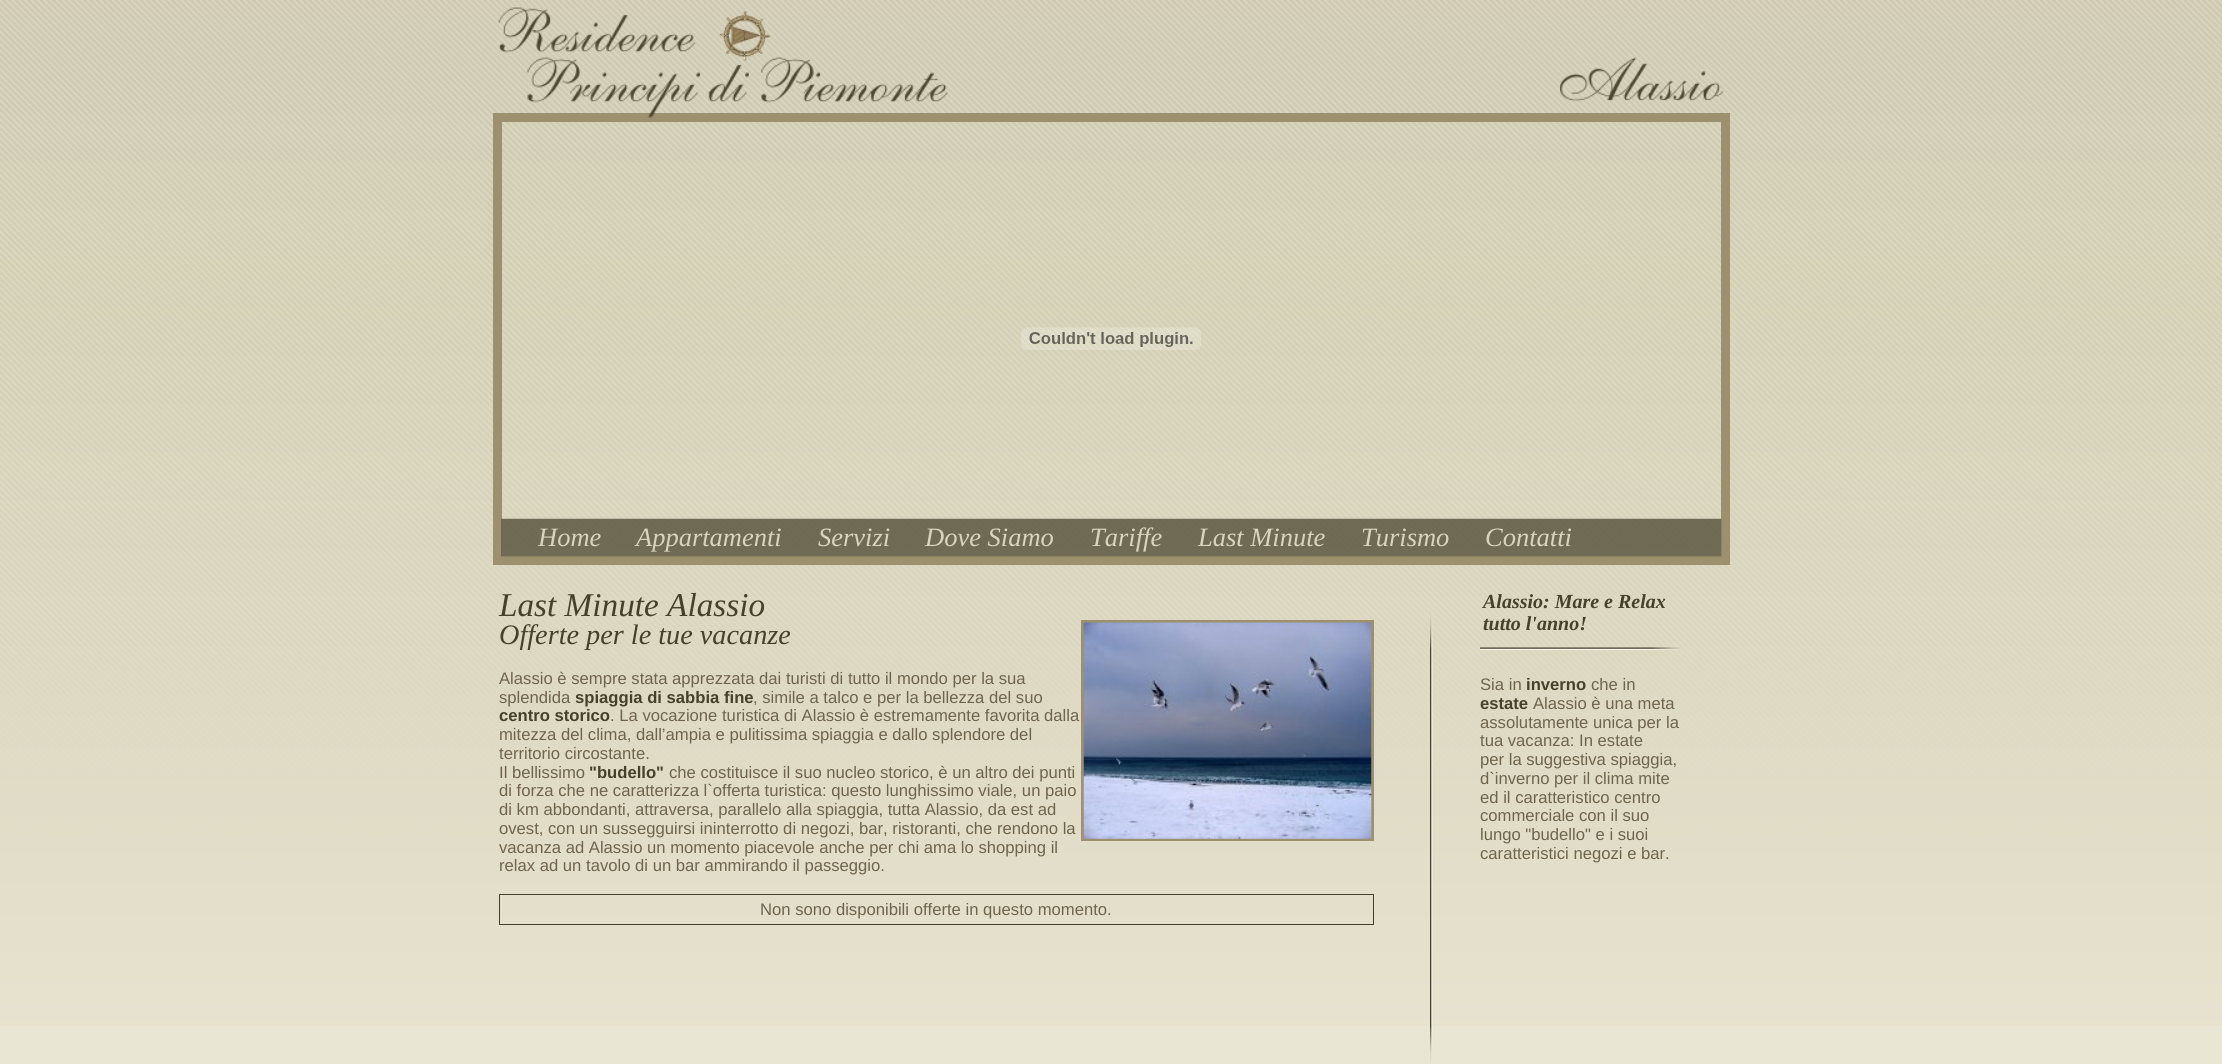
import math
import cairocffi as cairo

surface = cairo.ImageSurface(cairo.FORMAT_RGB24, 2222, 1064)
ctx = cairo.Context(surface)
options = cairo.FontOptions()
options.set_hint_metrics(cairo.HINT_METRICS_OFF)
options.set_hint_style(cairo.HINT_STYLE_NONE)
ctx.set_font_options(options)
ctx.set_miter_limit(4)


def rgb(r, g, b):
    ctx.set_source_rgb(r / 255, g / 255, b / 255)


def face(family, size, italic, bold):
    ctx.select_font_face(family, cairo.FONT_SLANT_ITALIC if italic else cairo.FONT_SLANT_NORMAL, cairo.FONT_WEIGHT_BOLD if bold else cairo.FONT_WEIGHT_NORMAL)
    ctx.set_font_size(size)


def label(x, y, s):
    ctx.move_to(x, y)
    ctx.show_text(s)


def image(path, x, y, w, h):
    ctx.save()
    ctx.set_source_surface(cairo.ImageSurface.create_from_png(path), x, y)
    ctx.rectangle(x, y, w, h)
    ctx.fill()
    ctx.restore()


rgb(234, 230, 212)
ctx.paint()
image('image0.png', 0, 0, 2222, 1026)
ctx.rectangle(497.5, 117.5, 1228, 443)
rgb(157, 144, 110)
ctx.set_line_width(9)
ctx.stroke()
image('image1.png', 498, 7, 450, 111)
image('image2.png', 1560, 57, 164, 45)
image('image3.png', 1021, 327, 180, 23)
image('image4.png', 501, 518, 1221, 39)
face('Liberation Serif', 26.5, 1, 0)
rgb(217, 213, 188)
label(538, 546, 'Home')
label(636, 546, 'Appartamenti')
label(818, 546, 'Servizi')
label(925, 546, 'Dove Siamo')
label(1090, 546, 'Tariffe')
label(1198, 546, 'Last Minute')
label(1361, 546, 'Turismo')
label(1485, 546, 'Contatti')
face('Liberation Serif', 33.25, 1, 0)
rgb(71, 65, 43)
label(499, 616, 'Last Minute Alassio')
face('Liberation Serif', 28.25, 1, 0)
label(499, 644, 'Offerte per le tue vacanze')
ctx.rectangle(1082.5, 621.5, 290, 218)
rgb(157, 144, 110)
ctx.set_line_width(3)
ctx.stroke()
image('image5.png', 1083, 622, 289, 217)
face('Liberation Sans', 16.65, 0, 0)
rgb(111, 100, 77)
label(499, 684, 'Alassio è sempre stata apprezzata dai turisti di tutto il mondo per la sua')
label(499, 703, 'splendida')
face('Liberation Sans', 16.65, 0, 1)
rgb(71, 65, 43)
label(575, 703, 'spiaggia di sabbia fine')
face('Liberation Sans', 16.65, 0, 0)
rgb(111, 100, 77)
label(753, 703, ', simile a talco e per la bellezza del suo')
face('Liberation Sans', 16.65, 0, 1)
rgb(71, 65, 43)
label(499, 721, 'centro storico')
face('Liberation Sans', 16.65, 0, 0)
rgb(111, 100, 77)
label(610, 721, '. La vocazione turistica di Alassio è estremamente favorita dalla')
label(499, 740, 'mitezza del clima, dall’ampia e pulitissima spiaggia e dallo splendore del')
label(499, 759, 'territorio circostante.')
label(499, 778, 'Il bellissimo')
face('Liberation Sans', 16.65, 0, 1)
rgb(71, 65, 43)
label(589, 778, '"budello"')
face('Liberation Sans', 16.65, 0, 0)
rgb(111, 100, 77)
label(669, 778, 'che costituisce il suo nucleo storico, è un altro dei punti')
label(499, 796, 'di forza che ne caratterizza l`offerta turistica: questo lunghissimo viale, un paio')
label(499, 815, 'di km abbondanti, attraversa, parallelo alla spiaggia, tutta Alassio, da est ad')
label(499, 834, 'ovest, con un sussegguirsi ininterrotto di negozi, bar, ristoranti, che rendono la')
label(499, 853, 'vacanza ad Alassio un momento piacevole anche per chi ama lo shopping il')
label(499, 871, 'relax ad un tavolo di un bar ammirando il passeggio.')
ctx.rectangle(499.5, 894.5, 874, 30)
rgb(71, 65, 43)
ctx.set_line_width(1)
ctx.stroke()
rgb(111, 100, 77)
label(760, 915, 'Non sono disponibili offerte in questo momento.')
image('image6.png', 1430, 610, 3, 454)
image('image7.png', 1480, 647, 200, 3)
face('Liberation Serif', 20, 1, 1)
rgb(71, 65, 43)
label(1483, 608, 'Alassio: Mare e Relax')
label(1483, 630, 'tutto l\'anno!')
face('Liberation Sans', 16.65, 0, 0)
rgb(111, 100, 77)
label(1480, 690, 'Sia in')
face('Liberation Sans', 16.65, 0, 1)
rgb(71, 65, 43)
label(1526, 690, 'inverno')
face('Liberation Sans', 16.65, 0, 0)
rgb(111, 100, 77)
label(1591, 690, 'che in')
face('Liberation Sans', 16.65, 0, 1)
rgb(71, 65, 43)
label(1480, 709, 'estate')
face('Liberation Sans', 16.65, 0, 0)
rgb(111, 100, 77)
label(1533, 709, 'Alassio è una meta')
label(1480, 728, 'assolutamente unica per la')
label(1480, 746, 'tua vacanza: In estate')
label(1480, 765, 'per la suggestiva spiaggia,')
label(1480, 784, 'd`inverno per il clima mite')
label(1480, 803, 'ed il caratteristico centro')
label(1480, 821, 'commerciale con il suo')
label(1480, 840, 'lungo "budello" e i suoi')
label(1480, 859, 'caratteristici negozi e bar.')
surface.write_to_png('render.png')
